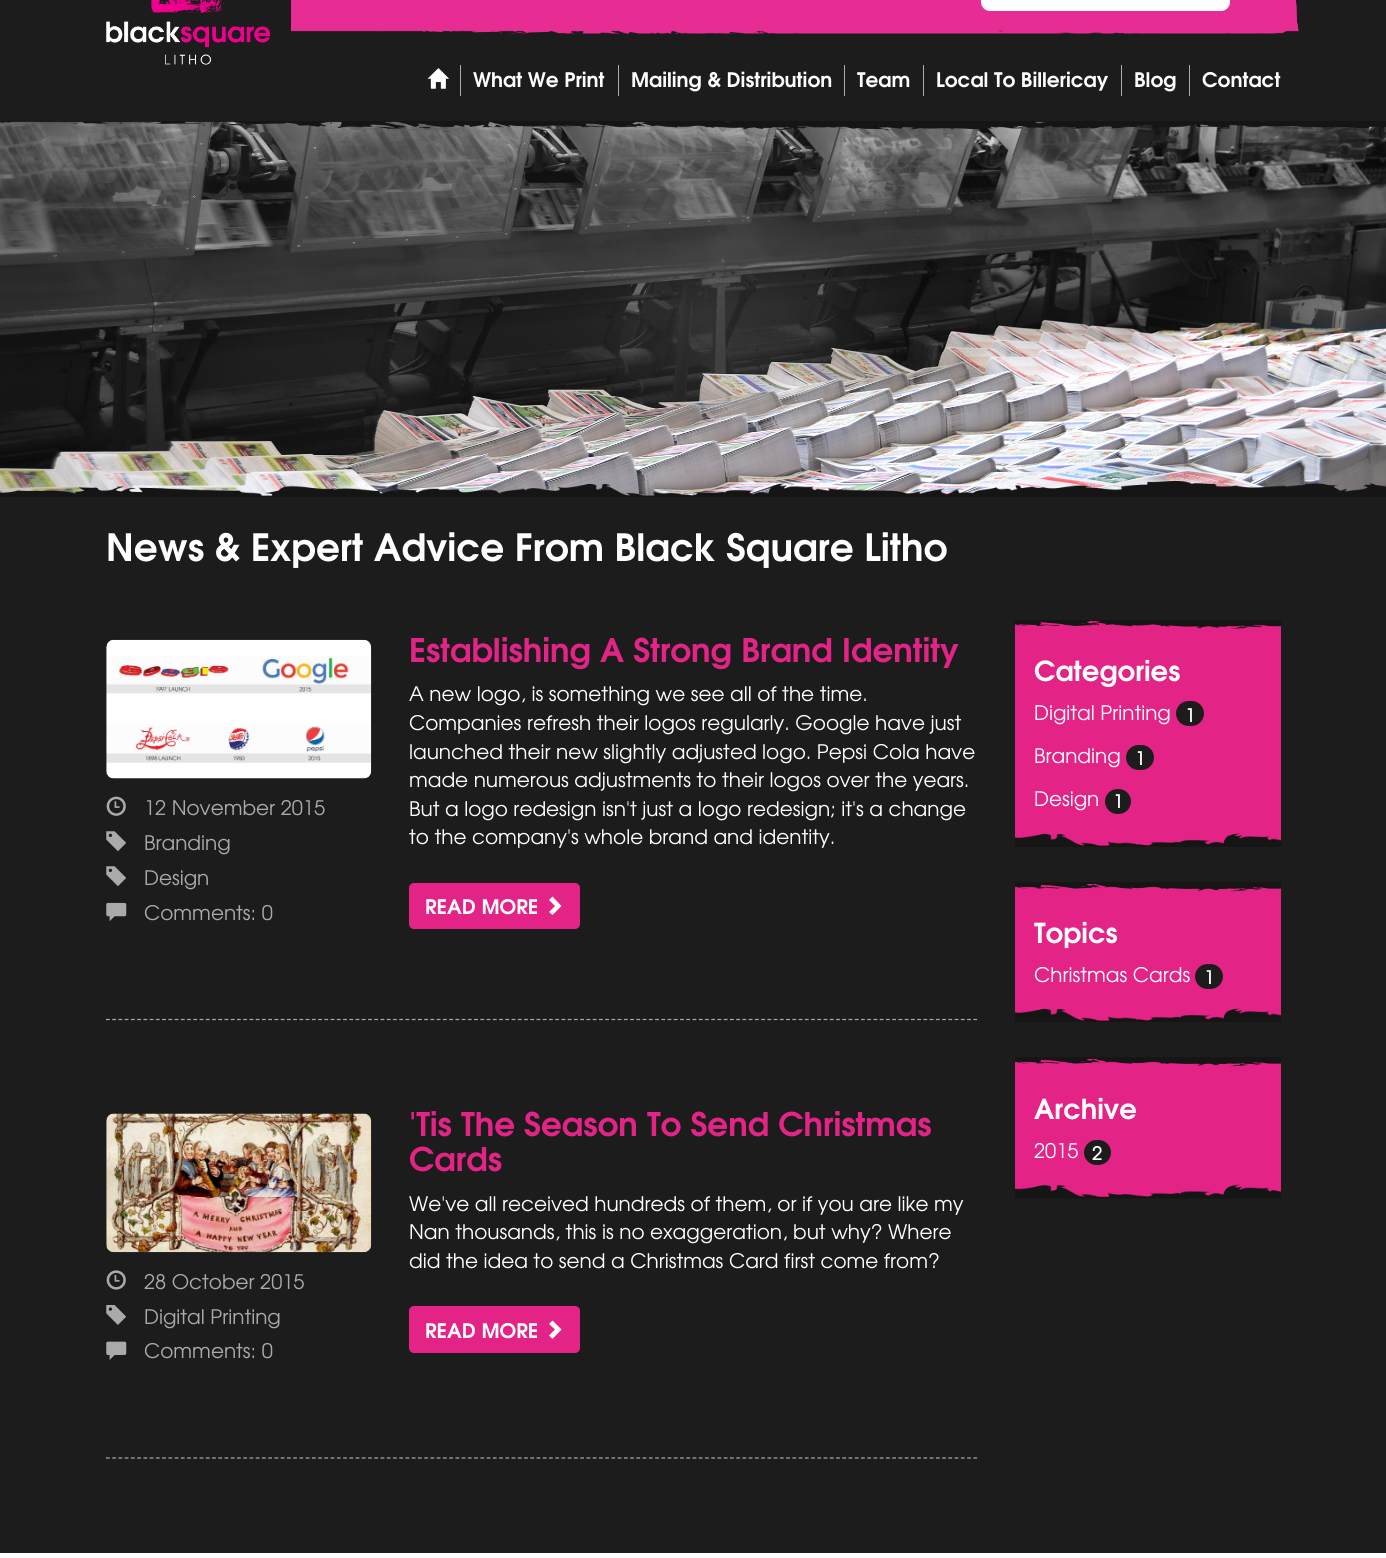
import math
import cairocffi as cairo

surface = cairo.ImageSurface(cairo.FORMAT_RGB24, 1386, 1558)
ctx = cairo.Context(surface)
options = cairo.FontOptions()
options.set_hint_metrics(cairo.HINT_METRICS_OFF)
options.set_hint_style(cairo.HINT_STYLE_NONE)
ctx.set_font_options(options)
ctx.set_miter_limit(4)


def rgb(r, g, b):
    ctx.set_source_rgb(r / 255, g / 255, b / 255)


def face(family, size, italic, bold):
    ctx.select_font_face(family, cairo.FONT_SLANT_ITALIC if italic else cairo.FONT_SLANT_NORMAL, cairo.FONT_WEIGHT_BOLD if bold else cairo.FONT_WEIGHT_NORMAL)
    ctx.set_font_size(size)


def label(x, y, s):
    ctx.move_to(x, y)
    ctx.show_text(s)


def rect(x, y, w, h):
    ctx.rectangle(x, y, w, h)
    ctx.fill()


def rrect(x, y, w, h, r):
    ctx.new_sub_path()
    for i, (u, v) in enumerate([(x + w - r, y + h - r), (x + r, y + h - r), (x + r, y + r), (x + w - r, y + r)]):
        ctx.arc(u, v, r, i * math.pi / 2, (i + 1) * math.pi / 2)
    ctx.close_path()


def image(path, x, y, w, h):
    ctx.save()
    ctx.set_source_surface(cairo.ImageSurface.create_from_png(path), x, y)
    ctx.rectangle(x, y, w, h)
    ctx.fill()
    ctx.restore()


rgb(28, 28, 28)
ctx.paint()
image('image0.png', 106, 0, 164, 65)
image('image1.png', 290, 0, 1009, 34)
rgb(255, 255, 255)
rrect(981, -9, 249, 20, 9)
ctx.fill()
rgb(170, 170, 170)
rect(460, 65, 1, 31)
image('image2.png', 427, 68, 22, 21)
rect(618, 65, 1, 31)
face('TeX Gyre Adventor', 20, 0, 1)
rgb(255, 255, 255)
label(473, 87, 'What We Print')
rgb(170, 170, 170)
rect(844, 65, 1, 31)
rgb(255, 255, 255)
label(631, 87, 'Mailing & Distribution')
rgb(170, 170, 170)
rect(923, 65, 1, 31)
rgb(255, 255, 255)
label(857, 87, 'Team')
rgb(170, 170, 170)
rect(1121, 65, 1, 31)
rgb(255, 255, 255)
label(936, 87, 'Local To Billericay')
rgb(170, 170, 170)
rect(1189, 65, 1, 31)
rgb(255, 255, 255)
label(1134, 87, 'Blog')
label(1202, 87, 'Contact')
image('image3.png', 0, 121, 1386, 375)
image('image4.png', 0, 121, 1386, 10)
image('image5.png', 0, 481, 1386, 16)
face('TeX Gyre Adventor', 37.5, 0, 1)
label(106, 561, 'News & Expert Advice From Black Square Litho')
image('image6.png', 106, 639, 266, 140)
image('image7.png', 106, 796, 20, 20)
face('TeX Gyre Adventor', 20, 0, 0)
rgb(170, 170, 170)
label(144, 815, '12 November 2015')
image('image8.png', 106, 831, 20, 20)
label(144, 850, 'Branding')
image('image8.png', 106, 866, 20, 20)
label(144, 885, 'Design')
image('image9.png', 106, 902, 21, 20)
label(144, 920, 'Comments: 0')
face('TeX Gyre Adventor', 32.5, 0, 1)
rgb(227, 35, 134)
label(409, 662, 'Establishing A Strong Brand Identity')
face('TeX Gyre Adventor', 20, 0, 0)
rgb(255, 255, 255)
label(409, 701, 'A new logo, is something we see all of the time.')
label(409, 730, 'Companies refresh their logos regularly. Google have just')
label(409, 759, 'launched their new slightly adjusted logo. Pepsi Cola have')
label(409, 787, 'made numerous adjustments to their logos over the years.')
label(409, 816, 'But a logo redesign isn\'t just a logo redesign; it\'s a change')
label(409, 844, 'to the company\'s whole brand and identity.')
rgb(227, 35, 134)
rrect(409.5, 883.5, 170, 45, 4.5)
ctx.fill_preserve()
ctx.set_line_width(1)
ctx.stroke()
face('TeX Gyre Adventor', 20, 0, 1)
rgb(255, 255, 255)
label(425, 914, 'READ MORE')
ctx.new_path()
ctx.move_to(561.5, 906)
ctx.line_to(552.5, 915)
ctx.line_to(549, 912)
ctx.line_to(555, 906)
ctx.line_to(549, 900)
ctx.line_to(552.5, 896.5)
ctx.close_path()
ctx.fill()
ctx.new_path()
ctx.move_to(106, 1019.5)
ctx.line_to(977.5, 1019.5)
rgb(170, 170, 170)
ctx.set_line_width(1.2)
ctx.set_dash([3.75, 2.49])
ctx.stroke()
image('image10.png', 106, 1113, 266, 140)
image('image11.png', 106, 1270, 20, 20)
face('TeX Gyre Adventor', 20, 0, 0)
label(144, 1289, '28 October 2015')
image('image12.png', 106, 1305, 20, 20)
label(144, 1324, 'Digital Printing')
image('image13.png', 106, 1341, 21, 19)
label(144, 1358, 'Comments: 0')
face('TeX Gyre Adventor', 32.5, 0, 1)
rgb(227, 35, 134)
label(409, 1136, '\'Tis The Season To Send Christmas')
label(409, 1171, 'Cards')
face('TeX Gyre Adventor', 20, 0, 0)
rgb(255, 255, 255)
label(409, 1211, 'We\'ve all received hundreds of them, or if you are like my')
label(409, 1239, 'Nan thousands, this is no exaggeration, but why? Where')
label(409, 1268, 'did the idea to send a Christmas Card first come from?')
rgb(227, 35, 134)
rrect(409.5, 1306.5, 170, 46, 4.5)
ctx.fill_preserve()
ctx.set_line_width(1)
ctx.set_dash([])
ctx.stroke()
face('TeX Gyre Adventor', 20, 0, 1)
rgb(255, 255, 255)
label(425, 1338, 'READ MORE')
ctx.new_path()
ctx.move_to(561.5, 1329.5)
ctx.line_to(552.5, 1339)
ctx.line_to(549, 1335.5)
ctx.line_to(555, 1329.5)
ctx.line_to(549, 1324)
ctx.line_to(552.5, 1320.5)
ctx.close_path()
ctx.fill()
ctx.new_path()
ctx.move_to(106, 1458)
ctx.line_to(977.5, 1458)
rgb(170, 170, 170)
ctx.set_line_width(1.2)
ctx.set_dash([3.75, 2.49])
ctx.stroke()
rgb(227, 35, 134)
rect(1015, 621, 266, 225)
image('image14.png', 1015, 620, 266, 9)
face('TeX Gyre Adventor', 27.5, 0, 1)
rgb(255, 255, 255)
label(1034, 681, 'Categories')
face('TeX Gyre Adventor', 20, 0, 0)
label(1034, 720, 'Digital Printing')
rgb(28, 28, 28)
rrect(1176, 701, 28, 25, 12.5)
ctx.fill()
face('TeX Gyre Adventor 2', 18, 0, 1)
rgb(255, 255, 255)
label(1185, 722, '1')
face('TeX Gyre Adventor', 20, 0, 0)
label(1034, 763, 'Branding')
rgb(28, 28, 28)
rrect(1126, 745, 28, 25, 12.5)
ctx.fill()
face('TeX Gyre Adventor 2', 18, 0, 1)
rgb(255, 255, 255)
label(1135, 765, '1')
face('TeX Gyre Adventor', 20, 0, 0)
label(1034, 806, 'Design')
rgb(28, 28, 28)
rrect(1105, 789, 26, 25, 12.5)
ctx.fill()
face('TeX Gyre Adventor 2', 18, 0, 1)
rgb(255, 255, 255)
label(1113, 808, '1')
image('image15.png', 1015, 833, 266, 14)
rgb(227, 35, 134)
rect(1015, 884, 266, 137)
image('image16.png', 1015, 882, 266, 10)
face('TeX Gyre Adventor', 27.5, 0, 1)
rgb(255, 255, 255)
label(1034, 943, 'Topics')
face('TeX Gyre Adventor', 20, 0, 0)
label(1034, 982, 'Christmas Cards')
rgb(28, 28, 28)
rrect(1195, 964, 28, 25, 12.5)
ctx.fill()
face('TeX Gyre Adventor 2', 18, 0, 1)
rgb(255, 255, 255)
label(1204, 984, '1')
image('image15.png', 1015, 1008, 266, 14)
rgb(227, 35, 134)
rect(1015, 1059, 266, 138)
image('image16.png', 1015, 1057, 266, 10)
face('TeX Gyre Adventor', 27.5, 0, 1)
rgb(255, 255, 255)
label(1034, 1119, 'Archive')
face('TeX Gyre Adventor', 20, 0, 0)
label(1034, 1158, '2015')
rgb(28, 28, 28)
rrect(1084, 1140, 27, 25, 12.5)
ctx.fill()
face('TeX Gyre Adventor 2', 18, 0, 1)
rgb(255, 255, 255)
label(1092, 1160, '2')
image('image17.png', 1015, 1184, 266, 15)
rect(0, 1553, 1386, 5)
surface.write_to_png('render.png')
